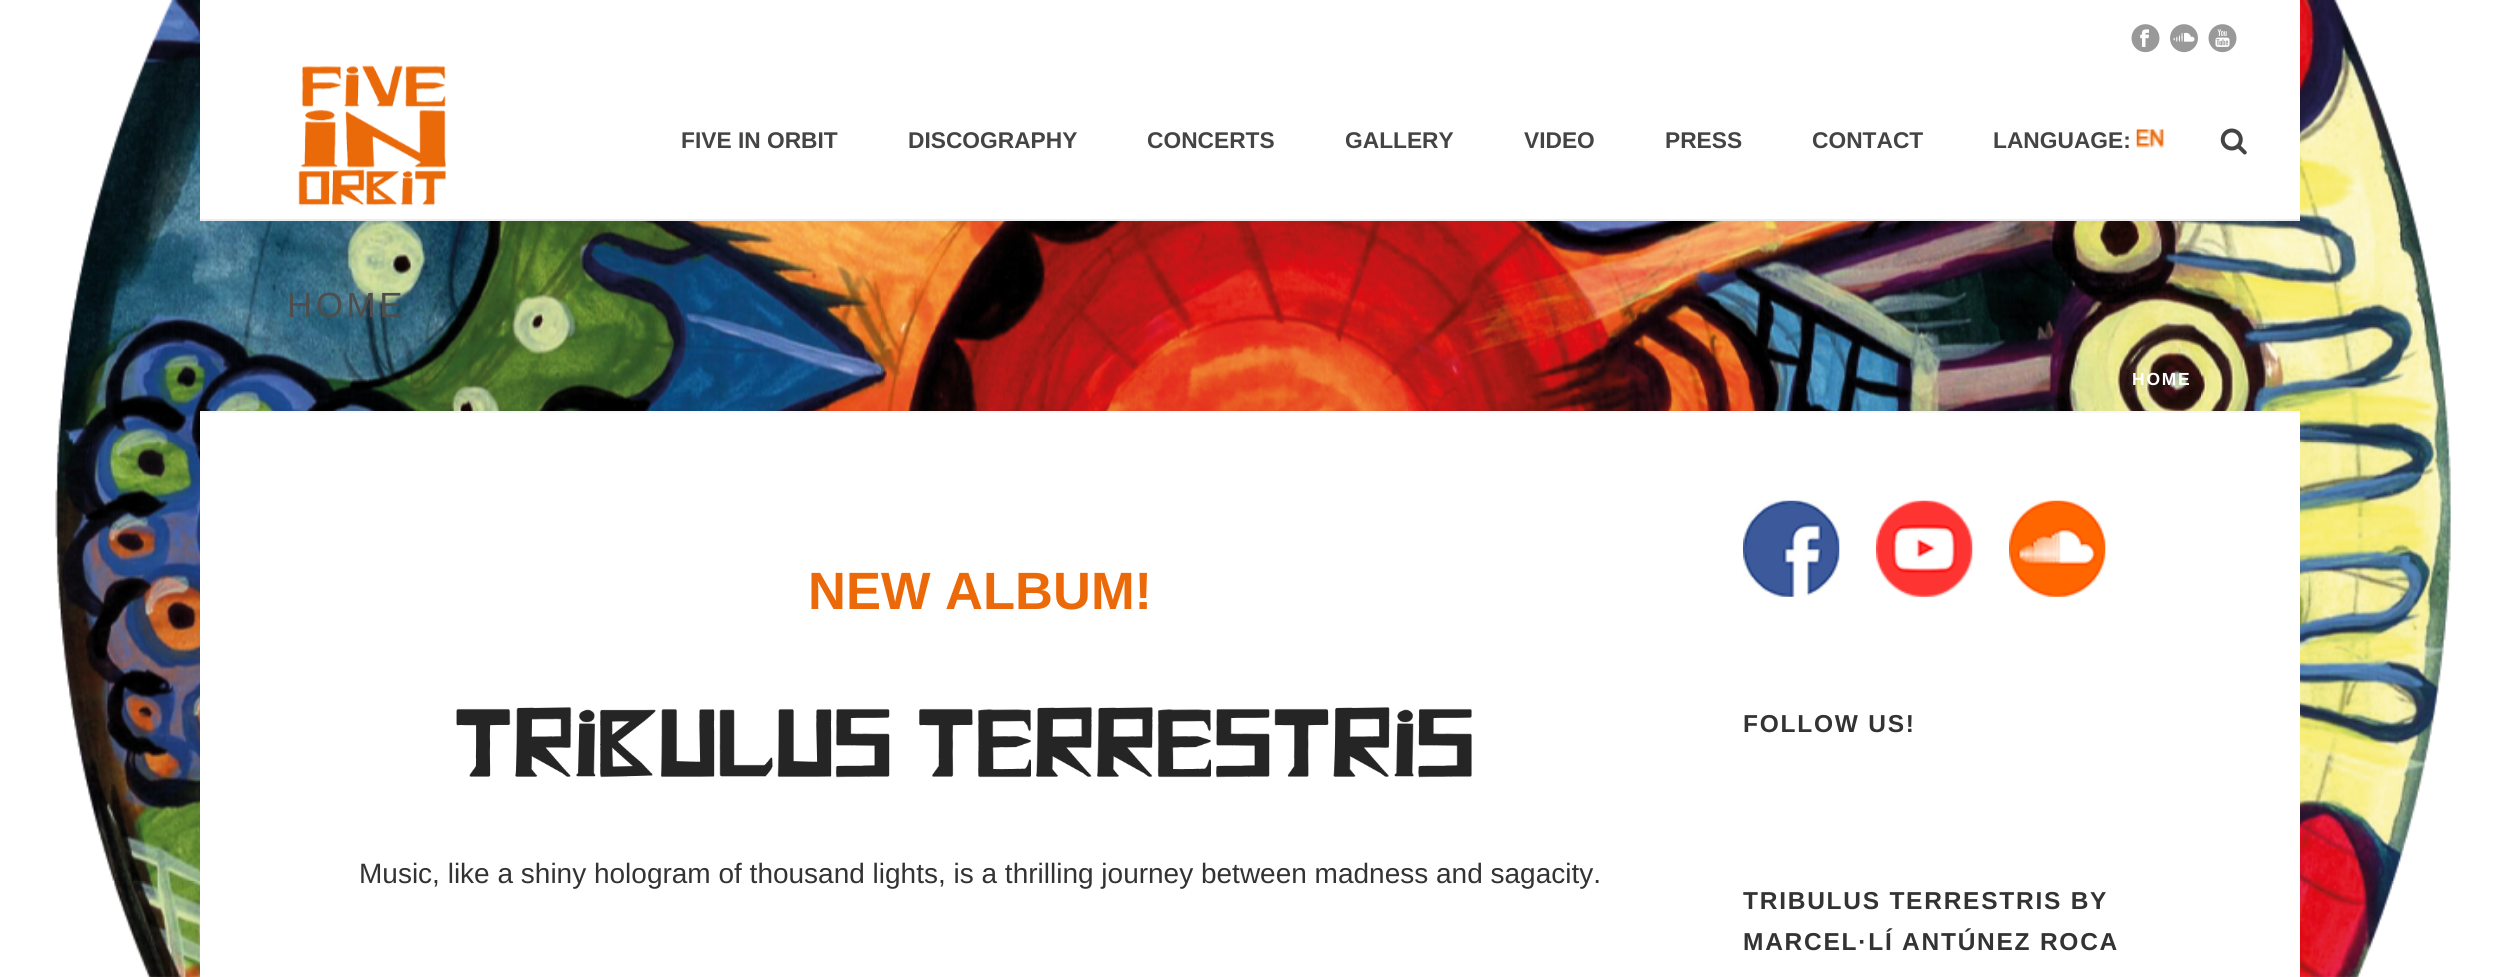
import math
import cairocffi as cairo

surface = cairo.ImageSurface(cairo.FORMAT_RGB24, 2499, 977)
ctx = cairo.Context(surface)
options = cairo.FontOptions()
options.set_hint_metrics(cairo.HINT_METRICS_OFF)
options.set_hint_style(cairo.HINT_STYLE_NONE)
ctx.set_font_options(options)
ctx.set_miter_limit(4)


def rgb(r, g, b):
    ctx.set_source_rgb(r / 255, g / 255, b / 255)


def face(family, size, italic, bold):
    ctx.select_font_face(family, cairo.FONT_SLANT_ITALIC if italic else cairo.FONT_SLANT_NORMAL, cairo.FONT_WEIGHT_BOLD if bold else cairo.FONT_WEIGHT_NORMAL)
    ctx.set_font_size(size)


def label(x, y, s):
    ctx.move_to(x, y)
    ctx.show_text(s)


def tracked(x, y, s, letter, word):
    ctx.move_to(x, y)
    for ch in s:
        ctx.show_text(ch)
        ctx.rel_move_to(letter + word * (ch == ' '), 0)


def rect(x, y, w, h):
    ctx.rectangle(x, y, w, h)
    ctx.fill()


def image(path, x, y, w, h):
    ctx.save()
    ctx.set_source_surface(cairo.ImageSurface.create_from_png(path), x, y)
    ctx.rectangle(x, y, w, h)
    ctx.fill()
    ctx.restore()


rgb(255, 255, 255)
ctx.paint()
image('image0.png', 55, 0, 2396, 977)
rgb(247, 247, 247)
rect(200, 411, 2100, 2)
rgb(255, 255, 255)
rect(200, 0, 2100, 219)
image('image1.png', 2131, 24, 29, 29)
image('image2.png', 2170, 24, 28, 29)
image('image3.png', 2208, 24, 29, 29)
rgb(237, 237, 237)
rect(200, 219, 2100, 2)
image('image4.png', 298, 65, 148, 141)
face('Liberation Sans', 22.75, 0, 1)
rgb(68, 68, 68)
label(681, 148, 'FIVE IN ORBIT')
label(908, 148, 'DISCOGRAPHY')
label(1147, 148, 'CONCERTS')
label(1345, 148, 'GALLERY')
label(1524, 148, 'VIDEO')
label(1665, 148, 'PRESS')
label(1812, 148, 'CONTACT')
label(1993, 148, 'LANGUAGE:')
image('image5.png', 2136, 129, 29, 19)
image('image6.png', 2220, 128, 27, 27)
face('Liberation Sans', 35, 0, 0)
rgb(77, 77, 77)
tracked(287, 317, 'HOME', 3.5, 0)
face('Liberation Sans', 17.5, 0, 1)
rgb(255, 255, 255)
tracked(2132, 385, 'HOME', 1.75, 0)
rect(200, 413, 2100, 564)
face('Liberation Sans', 52.5, 0, 1)
rgb(235, 105, 9)
label(808, 609, 'NEW ALBUM!')
image('image7.png', 456, 707, 1016, 71)
face('Liberation Sans', 28, 0, 0)
rgb(51, 51, 51)
label(359, 883, 'Music, like a shiny hologram of thousand lights, is a thrilling journey between madness and sagacity.')
image('image8.png', 1743, 500, 97, 97)
image('image9.png', 1876, 500, 97, 97)
image('image10.png', 2009, 500, 97, 97)
face('Liberation Sans', 24.5, 0, 1)
tracked(1743, 732, 'FOLLOW US!', 1.75, 0)
tracked(1743, 909, 'TRIBULUS TERRESTRIS BY', 1.75, 0)
tracked(1743, 950, 'MARCEL·LÍ ANTÚNEZ ROCA', 1.75, 0)
surface.write_to_png('render.png')
